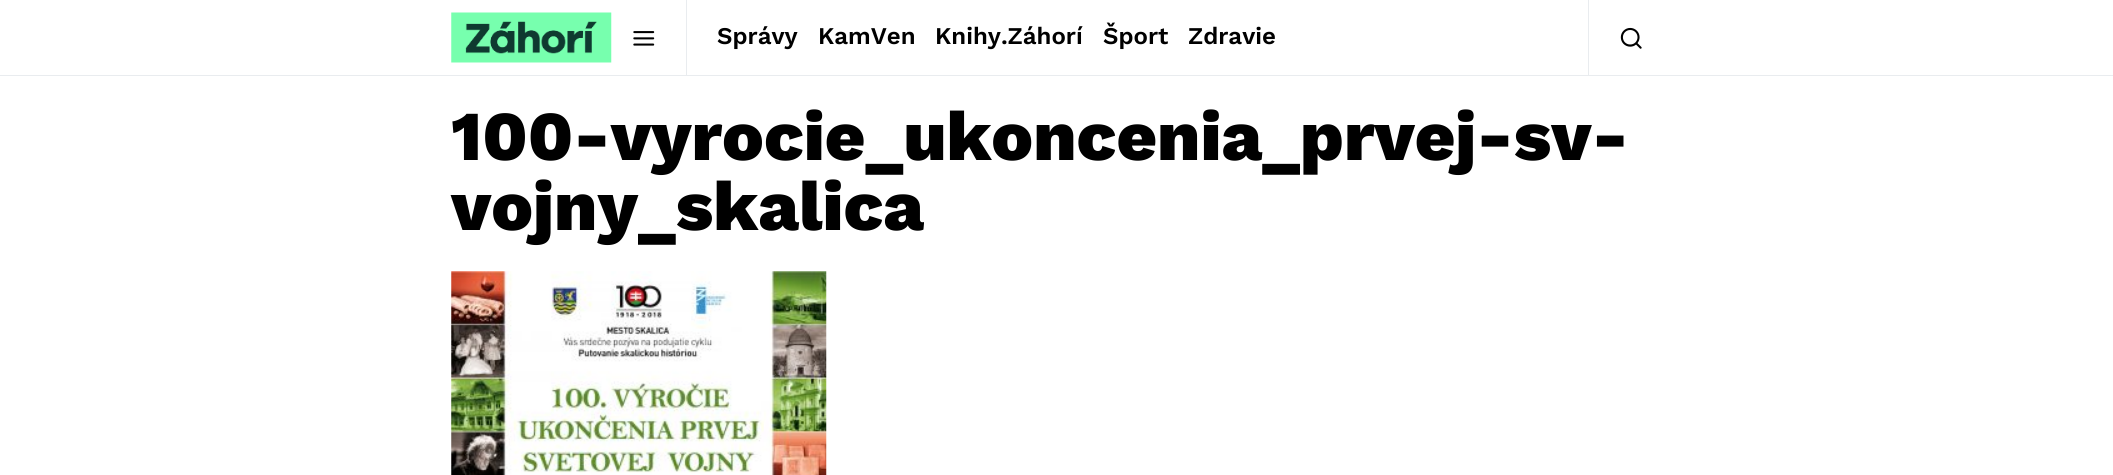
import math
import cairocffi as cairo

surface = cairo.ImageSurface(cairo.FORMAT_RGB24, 2113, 475)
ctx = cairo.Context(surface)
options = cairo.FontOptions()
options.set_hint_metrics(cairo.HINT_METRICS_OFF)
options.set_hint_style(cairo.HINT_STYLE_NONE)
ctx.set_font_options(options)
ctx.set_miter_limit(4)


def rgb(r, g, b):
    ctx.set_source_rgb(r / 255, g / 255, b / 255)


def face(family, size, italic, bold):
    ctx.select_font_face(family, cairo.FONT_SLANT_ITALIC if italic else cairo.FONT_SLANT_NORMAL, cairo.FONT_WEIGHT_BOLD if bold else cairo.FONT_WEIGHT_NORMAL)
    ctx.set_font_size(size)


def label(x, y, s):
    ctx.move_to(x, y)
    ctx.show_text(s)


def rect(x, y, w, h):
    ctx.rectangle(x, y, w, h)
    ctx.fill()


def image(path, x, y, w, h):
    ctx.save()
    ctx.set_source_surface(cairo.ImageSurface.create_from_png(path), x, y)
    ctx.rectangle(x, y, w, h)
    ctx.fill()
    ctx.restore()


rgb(255, 255, 255)
ctx.paint()
rgb(233, 236, 239)
rect(0, 75, 2113, 1)
image('image0.png', 451, 12, 161, 51)
image('image1.png', 633, 31, 22, 15)
rect(686, 0, 1, 75)
face('Work Sans SemiBold', 24, 0, 0)
rgb(0, 0, 0)
label(717, 44, 'Správy')
label(818, 44, 'KamVen')
label(935, 44, 'Knihy.Záhorí')
label(1103, 44, 'Šport')
label(1188, 44, 'Zdravie')
rgb(233, 236, 239)
rect(1588, 0, 1, 75)
image('image2.png', 1620, 27, 22, 22)
face('Work Sans ExtraBold', 70, 0, 0)
rgb(0, 0, 0)
label(451, 160, '100-vyrocie_ukoncenia_prvej-sv-')
label(451, 230, 'vojny_skalica')
image('image3.png', 451, 271, 376, 204)
surface.write_to_png('render.png')
